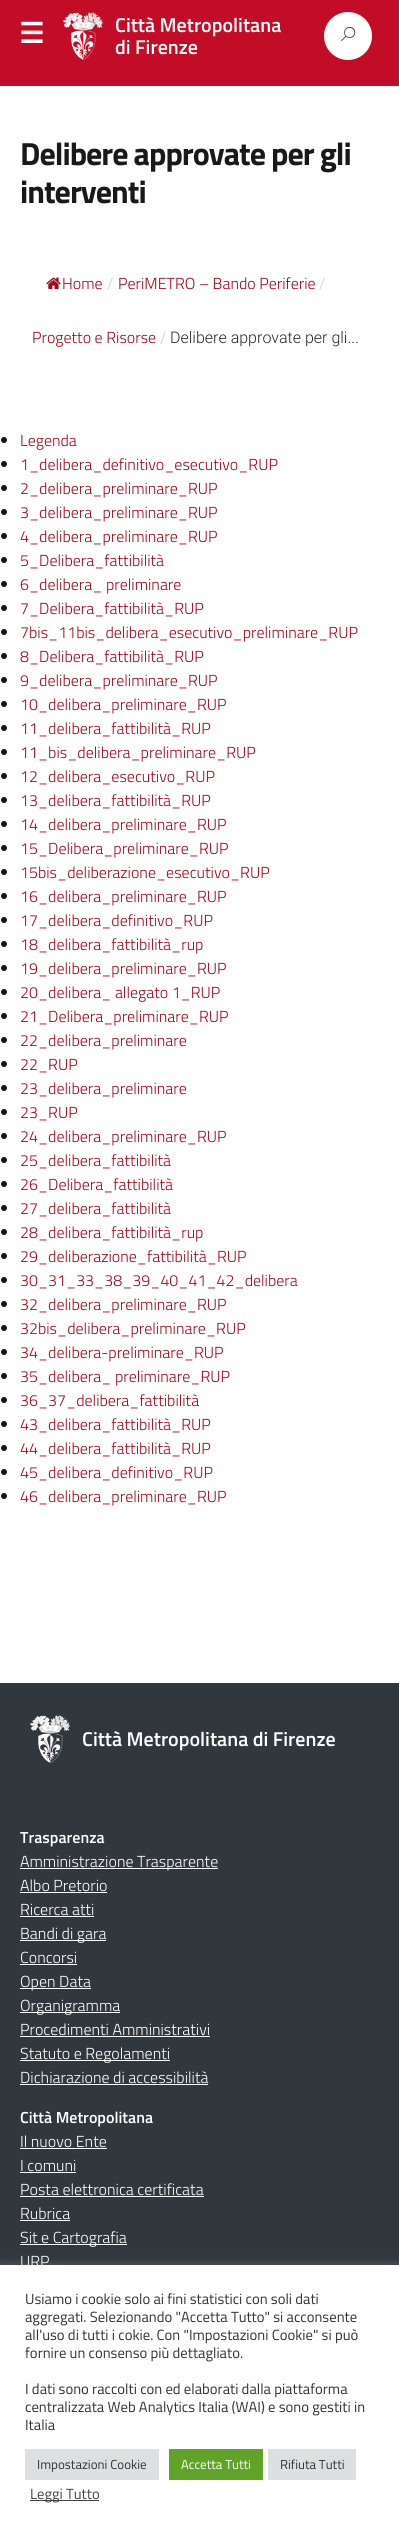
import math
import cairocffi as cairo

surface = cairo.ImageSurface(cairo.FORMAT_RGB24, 399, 2528)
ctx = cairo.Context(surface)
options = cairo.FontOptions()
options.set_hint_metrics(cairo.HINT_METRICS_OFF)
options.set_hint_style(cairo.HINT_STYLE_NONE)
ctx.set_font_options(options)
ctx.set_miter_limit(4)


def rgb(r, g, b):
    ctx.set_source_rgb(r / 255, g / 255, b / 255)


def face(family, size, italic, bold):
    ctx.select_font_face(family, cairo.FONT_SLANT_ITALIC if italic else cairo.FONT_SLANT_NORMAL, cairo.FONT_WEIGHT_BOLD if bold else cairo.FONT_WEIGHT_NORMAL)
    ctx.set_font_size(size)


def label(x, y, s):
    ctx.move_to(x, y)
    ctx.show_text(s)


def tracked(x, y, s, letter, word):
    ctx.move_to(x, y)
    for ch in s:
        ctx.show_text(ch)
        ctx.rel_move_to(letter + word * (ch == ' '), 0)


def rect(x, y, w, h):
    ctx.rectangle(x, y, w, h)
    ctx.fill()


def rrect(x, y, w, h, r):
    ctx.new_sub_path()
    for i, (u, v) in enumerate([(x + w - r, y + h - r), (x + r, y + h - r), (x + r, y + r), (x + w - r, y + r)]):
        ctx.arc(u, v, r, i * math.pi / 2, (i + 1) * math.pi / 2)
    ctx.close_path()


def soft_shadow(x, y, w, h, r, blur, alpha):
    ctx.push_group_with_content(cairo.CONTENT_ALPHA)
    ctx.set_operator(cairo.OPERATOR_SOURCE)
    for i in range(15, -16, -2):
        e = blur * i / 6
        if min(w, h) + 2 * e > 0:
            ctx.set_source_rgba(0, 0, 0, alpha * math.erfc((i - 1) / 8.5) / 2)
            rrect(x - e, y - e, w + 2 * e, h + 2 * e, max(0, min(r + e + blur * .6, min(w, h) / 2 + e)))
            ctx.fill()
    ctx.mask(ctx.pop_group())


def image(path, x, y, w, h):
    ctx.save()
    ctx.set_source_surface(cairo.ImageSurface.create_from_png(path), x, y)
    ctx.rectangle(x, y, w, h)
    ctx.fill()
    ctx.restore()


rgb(255, 255, 255)
ctx.paint()
rgb(195, 12, 38)
rect(0, 0, 399, 86)
face('DejaVu Sans', 28, 0, 1)
rgb(255, 255, 255)
label(19, 43, '☰')
image('image0.png', 63, 12, 41, 48)
face('Titillium Web SemiBold', 20, 0, 0)
label(115, 32, 'Città Metropolitana')
label(115, 54, 'di Firenze')
ctx.new_path()
ctx.arc(348, 36, 24, 0, 2 * math.pi)
ctx.fill()
image('image1.png', 341, 26, 15, 15)
face('Titillium Web', 32, 0, 1)
rgb(25, 25, 26)
tracked(20, 165, 'Delibere approvate per gli', -1, 0)
tracked(20, 203, 'interventi', -1, 0)
image('image2.png', 46, 277, 15, 12)
face('Titillium Web Light', 16, 0, 0)
rgb(160, 8, 30)
label(62, 289, 'Home')
face('Roboto Light', 16, 0, 0)
rgb(204, 204, 204)
label(107, 289, '/')
face('Titillium Web Light', 16, 0, 0)
rgb(160, 8, 30)
label(118, 289, 'PeriMETRO – Bando Periferie')
face('Roboto Light', 16, 0, 0)
rgb(204, 204, 204)
label(319, 289, '/')
face('Titillium Web Light', 16, 0, 0)
rgb(160, 8, 30)
label(32, 343, 'Progetto e Risorse')
face('Roboto Light', 16, 0, 0)
rgb(204, 204, 204)
label(160, 343, '/')
rgb(39, 39, 42)
label(170, 343, 'Delibere approvate per gli...')
rgb(25, 25, 26)
ctx.new_path()
ctx.arc(4, 440, 3, 0, 2 * math.pi)
ctx.fill()
face('Titillium Web Light', 16, 0, 0)
rgb(160, 8, 30)
label(20, 446, 'Legenda')
rgb(25, 25, 26)
ctx.new_path()
ctx.arc(4, 464, 3, 0, 2 * math.pi)
ctx.fill()
rgb(160, 8, 30)
label(20, 470, '1_delibera_definitivo_esecutivo_RUP')
rgb(25, 25, 26)
ctx.new_path()
ctx.arc(4, 488, 3, 0, 2 * math.pi)
ctx.fill()
rgb(160, 8, 30)
label(20, 494, '2_delibera_preliminare_RUP')
rgb(25, 25, 26)
ctx.new_path()
ctx.arc(4, 512, 3, 0, 2 * math.pi)
ctx.fill()
rgb(160, 8, 30)
label(20, 518, '3_delibera_preliminare_RUP')
rgb(25, 25, 26)
ctx.new_path()
ctx.arc(4, 536, 3, 0, 2 * math.pi)
ctx.fill()
rgb(160, 8, 30)
label(20, 542, '4_delibera_preliminare_RUP')
rgb(25, 25, 26)
ctx.new_path()
ctx.arc(4, 560, 3, 0, 2 * math.pi)
ctx.fill()
rgb(160, 8, 30)
label(20, 566, '5_Delibera_fattibilità')
rgb(25, 25, 26)
ctx.new_path()
ctx.arc(4, 584, 3, 0, 2 * math.pi)
ctx.fill()
rgb(160, 8, 30)
label(20, 590, '6_delibera_ preliminare')
rgb(25, 25, 26)
ctx.new_path()
ctx.arc(4, 608, 3, 0, 2 * math.pi)
ctx.fill()
rgb(160, 8, 30)
label(20, 614, '7_Delibera_fattibilità_RUP')
rgb(25, 25, 26)
ctx.new_path()
ctx.arc(4, 632, 3, 0, 2 * math.pi)
ctx.fill()
rgb(160, 8, 30)
label(20, 638, '7bis_11bis_delibera_esecutivo_preliminare_RUP')
rgb(25, 25, 26)
ctx.new_path()
ctx.arc(4, 656, 3, 0, 2 * math.pi)
ctx.fill()
rgb(160, 8, 30)
label(20, 662, '8_Delibera_fattibilità_RUP')
rgb(25, 25, 26)
ctx.new_path()
ctx.arc(4, 680, 3, 0, 2 * math.pi)
ctx.fill()
rgb(160, 8, 30)
label(20, 686, '9_delibera_preliminare_RUP')
rgb(25, 25, 26)
ctx.new_path()
ctx.arc(4, 704, 3, 0, 2 * math.pi)
ctx.fill()
rgb(160, 8, 30)
label(20, 710, '10_delibera_preliminare_RUP')
rgb(25, 25, 26)
ctx.new_path()
ctx.arc(4, 728, 3, 0, 2 * math.pi)
ctx.fill()
rgb(160, 8, 30)
label(20, 734, '11_delibera_fattibilità_RUP')
rgb(25, 25, 26)
ctx.new_path()
ctx.arc(4, 752, 3, 0, 2 * math.pi)
ctx.fill()
rgb(160, 8, 30)
label(20, 758, '11_bis_delibera_preliminare_RUP')
rgb(25, 25, 26)
ctx.new_path()
ctx.arc(4, 776, 3, 0, 2 * math.pi)
ctx.fill()
rgb(160, 8, 30)
label(20, 782, '12_delibera_esecutivo_RUP')
rgb(25, 25, 26)
ctx.new_path()
ctx.arc(4, 800, 3, 0, 2 * math.pi)
ctx.fill()
rgb(160, 8, 30)
label(20, 806, '13_delibera_fattibilità_RUP')
rgb(25, 25, 26)
ctx.new_path()
ctx.arc(4, 824, 3, 0, 2 * math.pi)
ctx.fill()
rgb(160, 8, 30)
label(20, 830, '14_delibera_preliminare_RUP')
rgb(25, 25, 26)
ctx.new_path()
ctx.arc(4, 848, 3, 0, 2 * math.pi)
ctx.fill()
rgb(160, 8, 30)
label(20, 854, '15_Delibera_preliminare_RUP')
rgb(25, 25, 26)
ctx.new_path()
ctx.arc(4, 872, 3, 0, 2 * math.pi)
ctx.fill()
rgb(160, 8, 30)
label(20, 878, '15bis_deliberazione_esecutivo_RUP')
rgb(25, 25, 26)
ctx.new_path()
ctx.arc(4, 896, 3, 0, 2 * math.pi)
ctx.fill()
rgb(160, 8, 30)
label(20, 902, '16_delibera_preliminare_RUP')
rgb(25, 25, 26)
ctx.new_path()
ctx.arc(4, 920, 3, 0, 2 * math.pi)
ctx.fill()
rgb(160, 8, 30)
label(20, 926, '17_delibera_definitivo_RUP')
rgb(25, 25, 26)
ctx.new_path()
ctx.arc(4, 944, 3, 0, 2 * math.pi)
ctx.fill()
rgb(160, 8, 30)
label(20, 950, '18_delibera_fattibilità_rup')
rgb(25, 25, 26)
ctx.new_path()
ctx.arc(4, 968, 3, 0, 2 * math.pi)
ctx.fill()
rgb(160, 8, 30)
label(20, 974, '19_delibera_preliminare_RUP')
rgb(25, 25, 26)
ctx.new_path()
ctx.arc(4, 992, 3, 0, 2 * math.pi)
ctx.fill()
rgb(160, 8, 30)
label(20, 998, '20_delibera_ allegato 1_RUP')
rgb(25, 25, 26)
ctx.new_path()
ctx.arc(4, 1016, 3, 0, 2 * math.pi)
ctx.fill()
rgb(160, 8, 30)
label(20, 1022, '21_Delibera_preliminare_RUP')
rgb(25, 25, 26)
ctx.new_path()
ctx.arc(4, 1040, 3, 0, 2 * math.pi)
ctx.fill()
rgb(160, 8, 30)
label(20, 1046, '22_delibera_preliminare')
rgb(25, 25, 26)
ctx.new_path()
ctx.arc(4, 1064, 3, 0, 2 * math.pi)
ctx.fill()
rgb(160, 8, 30)
label(20, 1070, '22_RUP')
rgb(25, 25, 26)
ctx.new_path()
ctx.arc(4, 1088, 3, 0, 2 * math.pi)
ctx.fill()
rgb(160, 8, 30)
label(20, 1094, '23_delibera_preliminare')
rgb(25, 25, 26)
ctx.new_path()
ctx.arc(4, 1112, 3, 0, 2 * math.pi)
ctx.fill()
rgb(160, 8, 30)
label(20, 1118, '23_RUP')
rgb(25, 25, 26)
ctx.new_path()
ctx.arc(4, 1136, 3, 0, 2 * math.pi)
ctx.fill()
rgb(160, 8, 30)
label(20, 1142, '24_delibera_preliminare_RUP')
rgb(25, 25, 26)
ctx.new_path()
ctx.arc(4, 1160, 3, 0, 2 * math.pi)
ctx.fill()
rgb(160, 8, 30)
label(20, 1166, '25_delibera_fattibilità')
rgb(25, 25, 26)
ctx.new_path()
ctx.arc(4, 1184, 3, 0, 2 * math.pi)
ctx.fill()
rgb(160, 8, 30)
label(20, 1190, '26_Delibera_fattibilità')
rgb(25, 25, 26)
ctx.new_path()
ctx.arc(4, 1208, 3, 0, 2 * math.pi)
ctx.fill()
rgb(160, 8, 30)
label(20, 1214, '27_delibera_fattibilità')
rgb(25, 25, 26)
ctx.new_path()
ctx.arc(4, 1232, 3, 0, 2 * math.pi)
ctx.fill()
rgb(160, 8, 30)
label(20, 1238, '28_delibera_fattibilità_rup')
rgb(25, 25, 26)
ctx.new_path()
ctx.arc(4, 1256, 3, 0, 2 * math.pi)
ctx.fill()
rgb(160, 8, 30)
label(20, 1262, '29_deliberazione_fattibilità_RUP')
rgb(25, 25, 26)
ctx.new_path()
ctx.arc(4, 1280, 3, 0, 2 * math.pi)
ctx.fill()
rgb(160, 8, 30)
label(20, 1286, '30_31_33_38_39_40_41_42_delibera')
rgb(25, 25, 26)
ctx.new_path()
ctx.arc(4, 1304, 3, 0, 2 * math.pi)
ctx.fill()
rgb(160, 8, 30)
label(20, 1310, '32_delibera_preliminare_RUP')
rgb(25, 25, 26)
ctx.new_path()
ctx.arc(4, 1328, 3, 0, 2 * math.pi)
ctx.fill()
rgb(160, 8, 30)
label(20, 1334, '32bis_delibera_preliminare_RUP')
rgb(25, 25, 26)
ctx.new_path()
ctx.arc(4, 1352, 3, 0, 2 * math.pi)
ctx.fill()
rgb(160, 8, 30)
label(20, 1358, '34_delibera-preliminare_RUP')
rgb(25, 25, 26)
ctx.new_path()
ctx.arc(4, 1376, 3, 0, 2 * math.pi)
ctx.fill()
rgb(160, 8, 30)
label(20, 1382, '35_delibera_ preliminare_RUP')
rgb(25, 25, 26)
ctx.new_path()
ctx.arc(4, 1400, 3, 0, 2 * math.pi)
ctx.fill()
rgb(160, 8, 30)
label(20, 1406, '36_37_delibera_fattibilità')
rgb(25, 25, 26)
ctx.new_path()
ctx.arc(4, 1424, 3, 0, 2 * math.pi)
ctx.fill()
rgb(160, 8, 30)
label(20, 1430, '43_delibera_fattibilità_RUP')
rgb(25, 25, 26)
ctx.new_path()
ctx.arc(4, 1448, 3, 0, 2 * math.pi)
ctx.fill()
rgb(160, 8, 30)
label(20, 1454, '44_delibera_fattibilità_RUP')
rgb(25, 25, 26)
ctx.new_path()
ctx.arc(4, 1472, 3, 0, 2 * math.pi)
ctx.fill()
rgb(160, 8, 30)
label(20, 1478, '45_delibera_definitivo_RUP')
rgb(25, 25, 26)
ctx.new_path()
ctx.arc(4, 1496, 3, 0, 2 * math.pi)
ctx.fill()
rgb(160, 8, 30)
label(20, 1502, '46_delibera_preliminare_RUP')
rgb(48, 55, 61)
rect(0, 1683, 399, 582)
image('image3.png', 30, 1715, 41, 48)
face('Titillium Web SemiBold', 20, 0, 0)
rgb(255, 255, 255)
label(82, 1746, 'Città Metropolitana di Firenze')
face('Titillium Web SemiBold', 16, 0, 0)
label(20, 1843, 'Trasparenza')
rect(20, 1868, 198, 1)
face('Titillium Web Light', 16, 0, 0)
label(20, 1867, 'Amministrazione Trasparente')
label(20, 1891, 'Albo Pretorio')
rect(20, 1892, 87, 1)
label(20, 1915, 'Ricerca atti')
rect(20, 1916, 74, 1)
rect(20, 1940, 86, 1)
label(20, 1939, 'Bandi di gara')
label(20, 1963, 'Concorsi')
rect(20, 1964, 57, 1)
rect(20, 1988, 71, 1)
label(20, 1987, 'Open Data')
rect(20, 2012, 100, 1)
label(20, 2011, 'Organigramma')
label(20, 2035, 'Procedimenti Amministrativi')
rect(20, 2036, 190, 1)
rect(20, 2060, 150, 1)
label(20, 2059, 'Statuto e Regolamenti')
label(20, 2083, 'Dichiarazione di accessibilità')
rect(20, 2084, 188, 1)
face('Titillium Web SemiBold', 16, 0, 0)
label(20, 2123, 'Città Metropolitana')
face('Titillium Web Light', 16, 0, 0)
label(20, 2147, 'Il nuovo Ente')
rect(20, 2148, 87, 1)
label(20, 2171, 'I comuni')
rect(20, 2172, 56, 1)
label(20, 2195, 'Posta elettronica certificata')
rect(20, 2196, 184, 1)
label(20, 2219, 'Rubrica')
rect(20, 2220, 50, 1)
rect(20, 2244, 107, 1)
label(20, 2243, 'Sit e Cartografia')
label(20, 2267, 'URP')
rgb(172, 171, 171)
soft_shadow(0, 2264, 399, 263, 0, 5, 0.3)
rgb(255, 255, 255)
rect(0, 2265, 399, 263)
face('Titillium Web', 14.7, 0, 0)
rgb(51, 51, 51)
label(25, 2304, 'Usiamo i cookie solo ai fini statistici con soli dati')
label(25, 2322, 'aggregati. Selezionando "Accetta Tutto" si acconsente')
label(25, 2340, 'all\'uso di tutti i cokie. Con "Impostazioni Cookie" si può')
label(25, 2358, 'fornire un consenso più dettagliato.')
label(25, 2394, 'I dati sono raccolti con ed elaborati dalla piattaforma')
label(25, 2412, 'centralizzata Web Analytics Italia (WAI) e sono gestiti in')
label(25, 2430, 'Italia')
rgb(222, 223, 224)
rect(25, 2449, 134, 31)
face('Titillium Web', 13, 0, 0)
rgb(51, 51, 51)
label(37, 2469, 'Impostazioni Cookie')
rgb(97, 162, 41)
rect(169, 2449, 94, 31)
rgb(255, 255, 255)
label(181, 2469, 'Accetta Tutti')
rgb(222, 223, 224)
rect(268, 2449, 88, 31)
rgb(51, 51, 51)
label(280, 2469, 'Rifiuta Tutti')
rgb(68, 68, 68)
rect(30, 2500, 69, 1)
face('Titillium Web', 14.7, 0, 0)
label(30, 2499, 'Leggi Tutto')
surface.write_to_png('render.png')
